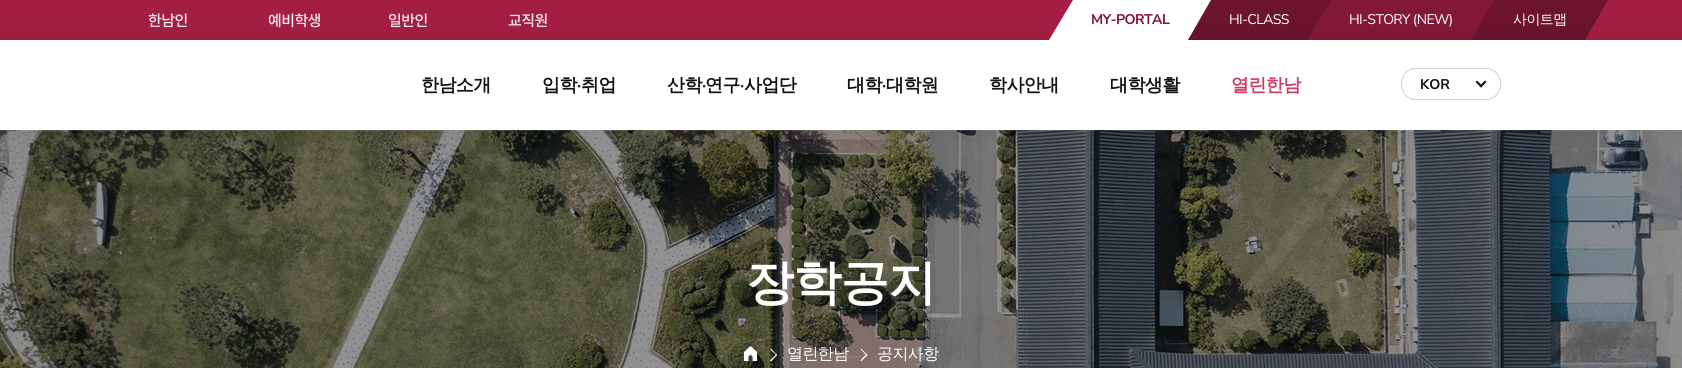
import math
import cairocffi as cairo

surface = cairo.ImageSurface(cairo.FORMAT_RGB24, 1682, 368)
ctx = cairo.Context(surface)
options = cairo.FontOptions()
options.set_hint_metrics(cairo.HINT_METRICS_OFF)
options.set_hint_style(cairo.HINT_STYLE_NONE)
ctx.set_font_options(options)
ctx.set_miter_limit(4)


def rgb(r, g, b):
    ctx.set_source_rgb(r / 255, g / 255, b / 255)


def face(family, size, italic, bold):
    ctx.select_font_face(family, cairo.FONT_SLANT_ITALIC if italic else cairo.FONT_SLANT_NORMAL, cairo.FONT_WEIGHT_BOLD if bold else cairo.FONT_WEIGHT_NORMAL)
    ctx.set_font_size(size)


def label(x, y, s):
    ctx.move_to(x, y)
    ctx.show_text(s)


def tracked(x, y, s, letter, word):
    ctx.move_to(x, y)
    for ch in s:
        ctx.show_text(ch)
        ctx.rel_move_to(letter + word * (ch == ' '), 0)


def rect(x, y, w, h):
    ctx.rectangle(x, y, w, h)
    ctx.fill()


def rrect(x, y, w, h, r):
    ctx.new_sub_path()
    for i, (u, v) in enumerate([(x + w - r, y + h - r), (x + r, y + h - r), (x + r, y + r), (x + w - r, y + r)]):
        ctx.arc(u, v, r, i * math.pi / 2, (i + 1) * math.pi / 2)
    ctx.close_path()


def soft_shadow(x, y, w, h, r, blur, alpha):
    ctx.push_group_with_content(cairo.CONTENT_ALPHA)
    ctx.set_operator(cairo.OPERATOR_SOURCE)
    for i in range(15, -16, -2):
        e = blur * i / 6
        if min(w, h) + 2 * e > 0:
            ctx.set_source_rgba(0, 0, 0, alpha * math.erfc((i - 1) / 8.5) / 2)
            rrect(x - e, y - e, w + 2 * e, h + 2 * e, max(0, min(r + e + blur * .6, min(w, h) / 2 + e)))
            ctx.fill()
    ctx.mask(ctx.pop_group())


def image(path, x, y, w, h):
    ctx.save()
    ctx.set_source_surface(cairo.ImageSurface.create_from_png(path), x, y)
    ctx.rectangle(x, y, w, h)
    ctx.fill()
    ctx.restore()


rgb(255, 255, 255)
ctx.paint()
rgb(164, 30, 68)
rect(0, 0, 1682, 40)
image('image0.png', 0, 130, 1682, 238)
ctx.set_source_rgba(1, 1, 1, 0.1)
rect(0, 130, 1682, 1)
rgb(0, 0, 0)
soft_shadow(0, 40, 1682, 90, 0, 10, 0.1)
face('Noto Sans KR Medium', 15, 0, 0)
rgb(246, 232, 236)
tracked(148, 26, '한남인', -0.6, 0)
tracked(268, 26, '예비학생', -0.6, 0)
tracked(388, 26, '일반인', -0.6, 0)
tracked(508, 26, '교직원', -0.6, 0)
rgb(255, 255, 255)
rect(0, 40, 1682, 90)
face('WenQuanYi Zen Hei', 18, 0, 1)
rgb(20, 20, 20)
tracked(421, 91, '한남소개', -0.6, 0)
tracked(542, 91, '입학', -0.6, 0)
face('Nunito Sans SemiBold', 18, 0, 0)
tracked(577, 91, '·', -0.6, 0)
face('WenQuanYi Zen Hei', 18, 0, 1)
tracked(581, 91, '취업', -0.6, 0)
tracked(667, 91, '산학', -0.6, 0)
face('Nunito Sans SemiBold', 18, 0, 0)
tracked(702, 91, '·', -0.6, 0)
face('WenQuanYi Zen Hei', 18, 0, 1)
tracked(705, 91, '연구', -0.6, 0)
face('Nunito Sans SemiBold', 18, 0, 0)
tracked(740, 91, '·', -0.6, 0)
face('WenQuanYi Zen Hei', 18, 0, 1)
tracked(744, 91, '사업단', -0.6, 0)
tracked(847, 91, '대학', -0.6, 0)
face('Nunito Sans SemiBold', 18, 0, 0)
tracked(882, 91, '·', -0.6, 0)
face('WenQuanYi Zen Hei', 18, 0, 1)
tracked(886, 91, '대학원', -0.6, 0)
tracked(989, 91, '학사안내', -0.6, 0)
tracked(1110, 91, '대학생활', -0.6, 0)
rgb(207, 60, 102)
tracked(1231, 91, '열린한남', -0.6, 0)
rgb(255, 255, 255)
ctx.new_path()
ctx.move_to(1073, 0)
ctx.line_to(1211, 0)
ctx.line_to(1188, 40)
ctx.line_to(1049, 40)
ctx.close_path()
ctx.fill()
face('Nunito Sans', 14, 0, 1)
rgb(131, 22, 50)
tracked(1091, 24, 'MY-PORTAL', -0.6, 0)
ctx.set_source_rgba(0, 0, 0, 0.35)
ctx.new_path()
ctx.move_to(1211, 0)
ctx.line_to(1331, 0)
ctx.line_to(1307, 40)
ctx.line_to(1188, 40)
ctx.close_path()
ctx.fill()
face('Nunito Sans', 14, 0, 0)
rgb(255, 255, 255)
tracked(1229, 24, 'HI-CLASS', -0.6, 0)
ctx.set_source_rgba(0, 0, 0, 0.2)
ctx.new_path()
ctx.move_to(1331, 0)
ctx.line_to(1494, 0)
ctx.line_to(1471, 40)
ctx.line_to(1307, 40)
ctx.close_path()
ctx.fill()
rgb(255, 255, 255)
tracked(1349, 24, 'HI-STORY (NEW)', -0.6, 0)
ctx.set_source_rgba(0, 0, 0, 0.35)
ctx.new_path()
ctx.move_to(1494, 0)
ctx.line_to(1608, 0)
ctx.line_to(1585, 40)
ctx.line_to(1471, 40)
ctx.close_path()
ctx.fill()
face('WenQuanYi Zen Hei Medium', 14, 0, 0)
rgb(255, 255, 255)
tracked(1513, 24, '사이트맵', -0.6, 0)
rrect(1401.5, 68.5, 99, 31, 14.5)
rgb(210, 210, 210)
ctx.set_line_width(1)
ctx.stroke()
face('Nunito Sans', 14, 0, 1)
rgb(20, 20, 20)
label(1420, 89, 'KOR')
rgb(17, 17, 17)
ctx.new_path()
ctx.move_to(1485, 80.5)
ctx.line_to(1486.5, 82)
ctx.line_to(1481, 87.5)
ctx.line_to(1479.5, 86)
ctx.close_path()
ctx.fill()
ctx.new_path()
ctx.move_to(1477, 80.5)
ctx.line_to(1482.5, 86)
ctx.line_to(1481, 87.5)
ctx.line_to(1475.5, 82)
ctx.close_path()
ctx.fill()
face('WenQuanYi Zen Hei', 48, 0, 1)
rgb(255, 255, 255)
tracked(746, 299, '장학공지', -0.6, 0)
image('image1.png', 744, 346, 13, 15)
ctx.new_path()
ctx.move_to(771, 348.5)
ctx.line_to(777, 355)
ctx.line_to(776.5, 355.5)
ctx.line_to(770, 349)
ctx.close_path()
ctx.fill()
ctx.new_path()
ctx.move_to(776.5, 354)
ctx.line_to(777, 355)
ctx.line_to(771, 361.5)
ctx.line_to(770, 360.5)
ctx.close_path()
ctx.fill()
face('WenQuanYi Zen Hei Medium', 16, 0, 0)
tracked(787, 359, '열린한남', -0.6, 0)
ctx.new_path()
ctx.move_to(861, 348.5)
ctx.line_to(867.5, 355)
ctx.line_to(866.5, 355.5)
ctx.line_to(860.5, 349)
ctx.close_path()
ctx.fill()
ctx.new_path()
ctx.move_to(866.5, 354)
ctx.line_to(867.5, 355)
ctx.line_to(861, 361.5)
ctx.line_to(860.5, 360.5)
ctx.close_path()
ctx.fill()
tracked(877, 359, '공지사항', -0.6, 0)
surface.write_to_png('render.png')
